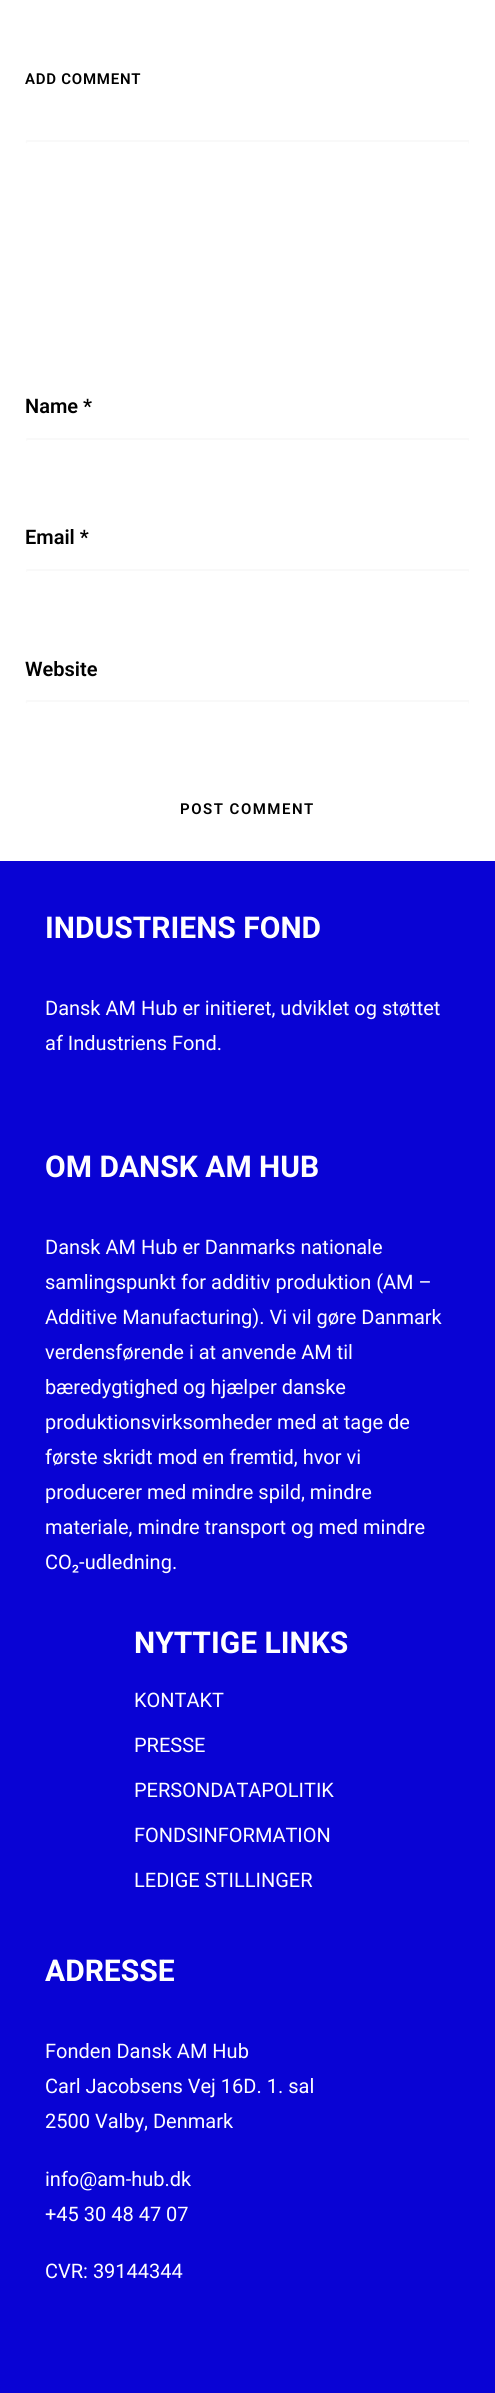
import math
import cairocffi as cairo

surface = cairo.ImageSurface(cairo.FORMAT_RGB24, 495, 2393)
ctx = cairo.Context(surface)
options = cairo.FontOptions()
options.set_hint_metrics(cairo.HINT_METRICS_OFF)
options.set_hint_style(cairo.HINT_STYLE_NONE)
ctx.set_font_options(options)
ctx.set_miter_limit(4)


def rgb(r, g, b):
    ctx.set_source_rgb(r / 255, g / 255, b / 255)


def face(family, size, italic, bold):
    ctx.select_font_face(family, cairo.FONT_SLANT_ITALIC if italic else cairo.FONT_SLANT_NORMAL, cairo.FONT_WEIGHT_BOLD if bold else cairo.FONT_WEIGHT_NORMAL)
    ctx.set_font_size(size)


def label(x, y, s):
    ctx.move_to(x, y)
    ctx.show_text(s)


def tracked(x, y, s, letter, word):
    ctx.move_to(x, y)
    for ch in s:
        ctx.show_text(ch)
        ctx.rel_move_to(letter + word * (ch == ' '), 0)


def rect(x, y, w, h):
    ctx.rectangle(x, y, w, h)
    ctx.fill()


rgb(255, 255, 255)
ctx.paint()
face('Roboto SemiBold', 15, 0, 0)
rgb(0, 0, 0)
tracked(25, 84, 'ADD COMMENT', 0.75, 0)
rgb(249, 249, 249)
ctx.new_path()
ctx.move_to(28, 142)
ctx.line_to(468, 142)
ctx.line_to(469, 144)
ctx.line_to(469, 140)
ctx.line_to(27, 140)
ctx.curve_to(25, 140, 26, 143, 26, 144)
ctx.curve_to(26, 143, 27, 142, 28, 142)
ctx.close_path()
ctx.fill()
face('Roboto SemiBold', 20, 0, 0)
rgb(0, 0, 0)
label(25, 413, 'Name *')
rgb(249, 249, 249)
ctx.new_path()
ctx.move_to(28, 440)
ctx.line_to(468, 440)
ctx.line_to(469, 441)
ctx.line_to(469, 438)
ctx.line_to(468, 438)
ctx.line_to(27, 438)
ctx.curve_to(26, 438, 26, 440, 26, 441)
ctx.close_path()
ctx.fill()
rgb(0, 0, 0)
label(25, 544, 'Email *')
rgb(249, 249, 249)
ctx.new_path()
ctx.move_to(28, 571)
ctx.line_to(468, 571)
ctx.line_to(469, 572)
ctx.line_to(469, 569)
ctx.line_to(468, 569)
ctx.line_to(27, 569)
ctx.curve_to(26, 569, 26, 571, 26, 572)
ctx.close_path()
ctx.fill()
rgb(0, 0, 0)
label(25, 676, 'Website')
rgb(249, 249, 249)
ctx.new_path()
ctx.move_to(28, 702)
ctx.line_to(468, 702)
ctx.line_to(469, 704)
ctx.line_to(469, 700)
ctx.line_to(27, 700)
ctx.curve_to(25, 700, 26, 703, 26, 704)
ctx.curve_to(26, 703, 27, 702, 28, 702)
ctx.close_path()
ctx.fill()
face('Roboto SemiBold', 15, 0, 0)
rgb(0, 0, 0)
tracked(180, 814, 'POST COMMENT', 1.5, 0)
rgb(9, 3, 212)
rect(0, 861, 495, 1532)
face('Roboto', 30, 0, 1)
rgb(255, 255, 255)
label(45, 938, 'INDUSTRIENS FOND')
face('Roboto', 20, 0, 0)
label(45, 1015, 'Dansk AM Hub er initieret, udviklet og støttet')
label(45, 1050, 'af Industriens Fond.')
face('Roboto', 30, 0, 1)
label(45, 1177, 'OM DANSK AM HUB')
face('Roboto', 20, 0, 0)
label(45, 1254, 'Dansk AM Hub er Danmarks nationale')
label(45, 1289, 'samlingspunkt for additiv produktion (AM –')
label(45, 1324, 'Additive Manufacturing). Vi vil gøre Danmark')
label(45, 1359, 'verdensførende i at anvende AM til')
label(45, 1394, 'bæredygtighed og hjælper danske')
label(45, 1429, 'produktionsvirksomheder med at tage de')
label(45, 1464, 'første skridt mod en fremtid, hvor vi')
label(45, 1499, 'producerer med mindre spild, mindre')
label(45, 1534, 'materiale, mindre transport og med mindre')
label(45, 1569, 'CO₂-udledning.')
face('Roboto', 30, 0, 1)
label(134, 1653, 'NYTTIGE LINKS')
face('Roboto', 20, 0, 0)
label(134, 1707, 'KONTAKT')
label(134, 1752, 'PRESSE')
label(134, 1797, 'PERSONDATAPOLITIK')
label(134, 1842, 'FONDSINFORMATION')
label(134, 1887, 'LEDIGE STILLINGER')
face('Roboto', 30, 0, 1)
label(45, 1981, 'ADRESSE')
face('Roboto', 20, 0, 0)
label(45, 2058, 'Fonden Dansk AM Hub')
label(45, 2093, 'Carl Jacobsens Vej 16D. 1. sal')
label(45, 2128, '2500 Valby, Denmark')
label(45, 2186, 'info@am-hub.dk')
label(45, 2221, '+45 30 48 47 07')
label(45, 2278, 'CVR: 39144344')
surface.write_to_png('render.png')
